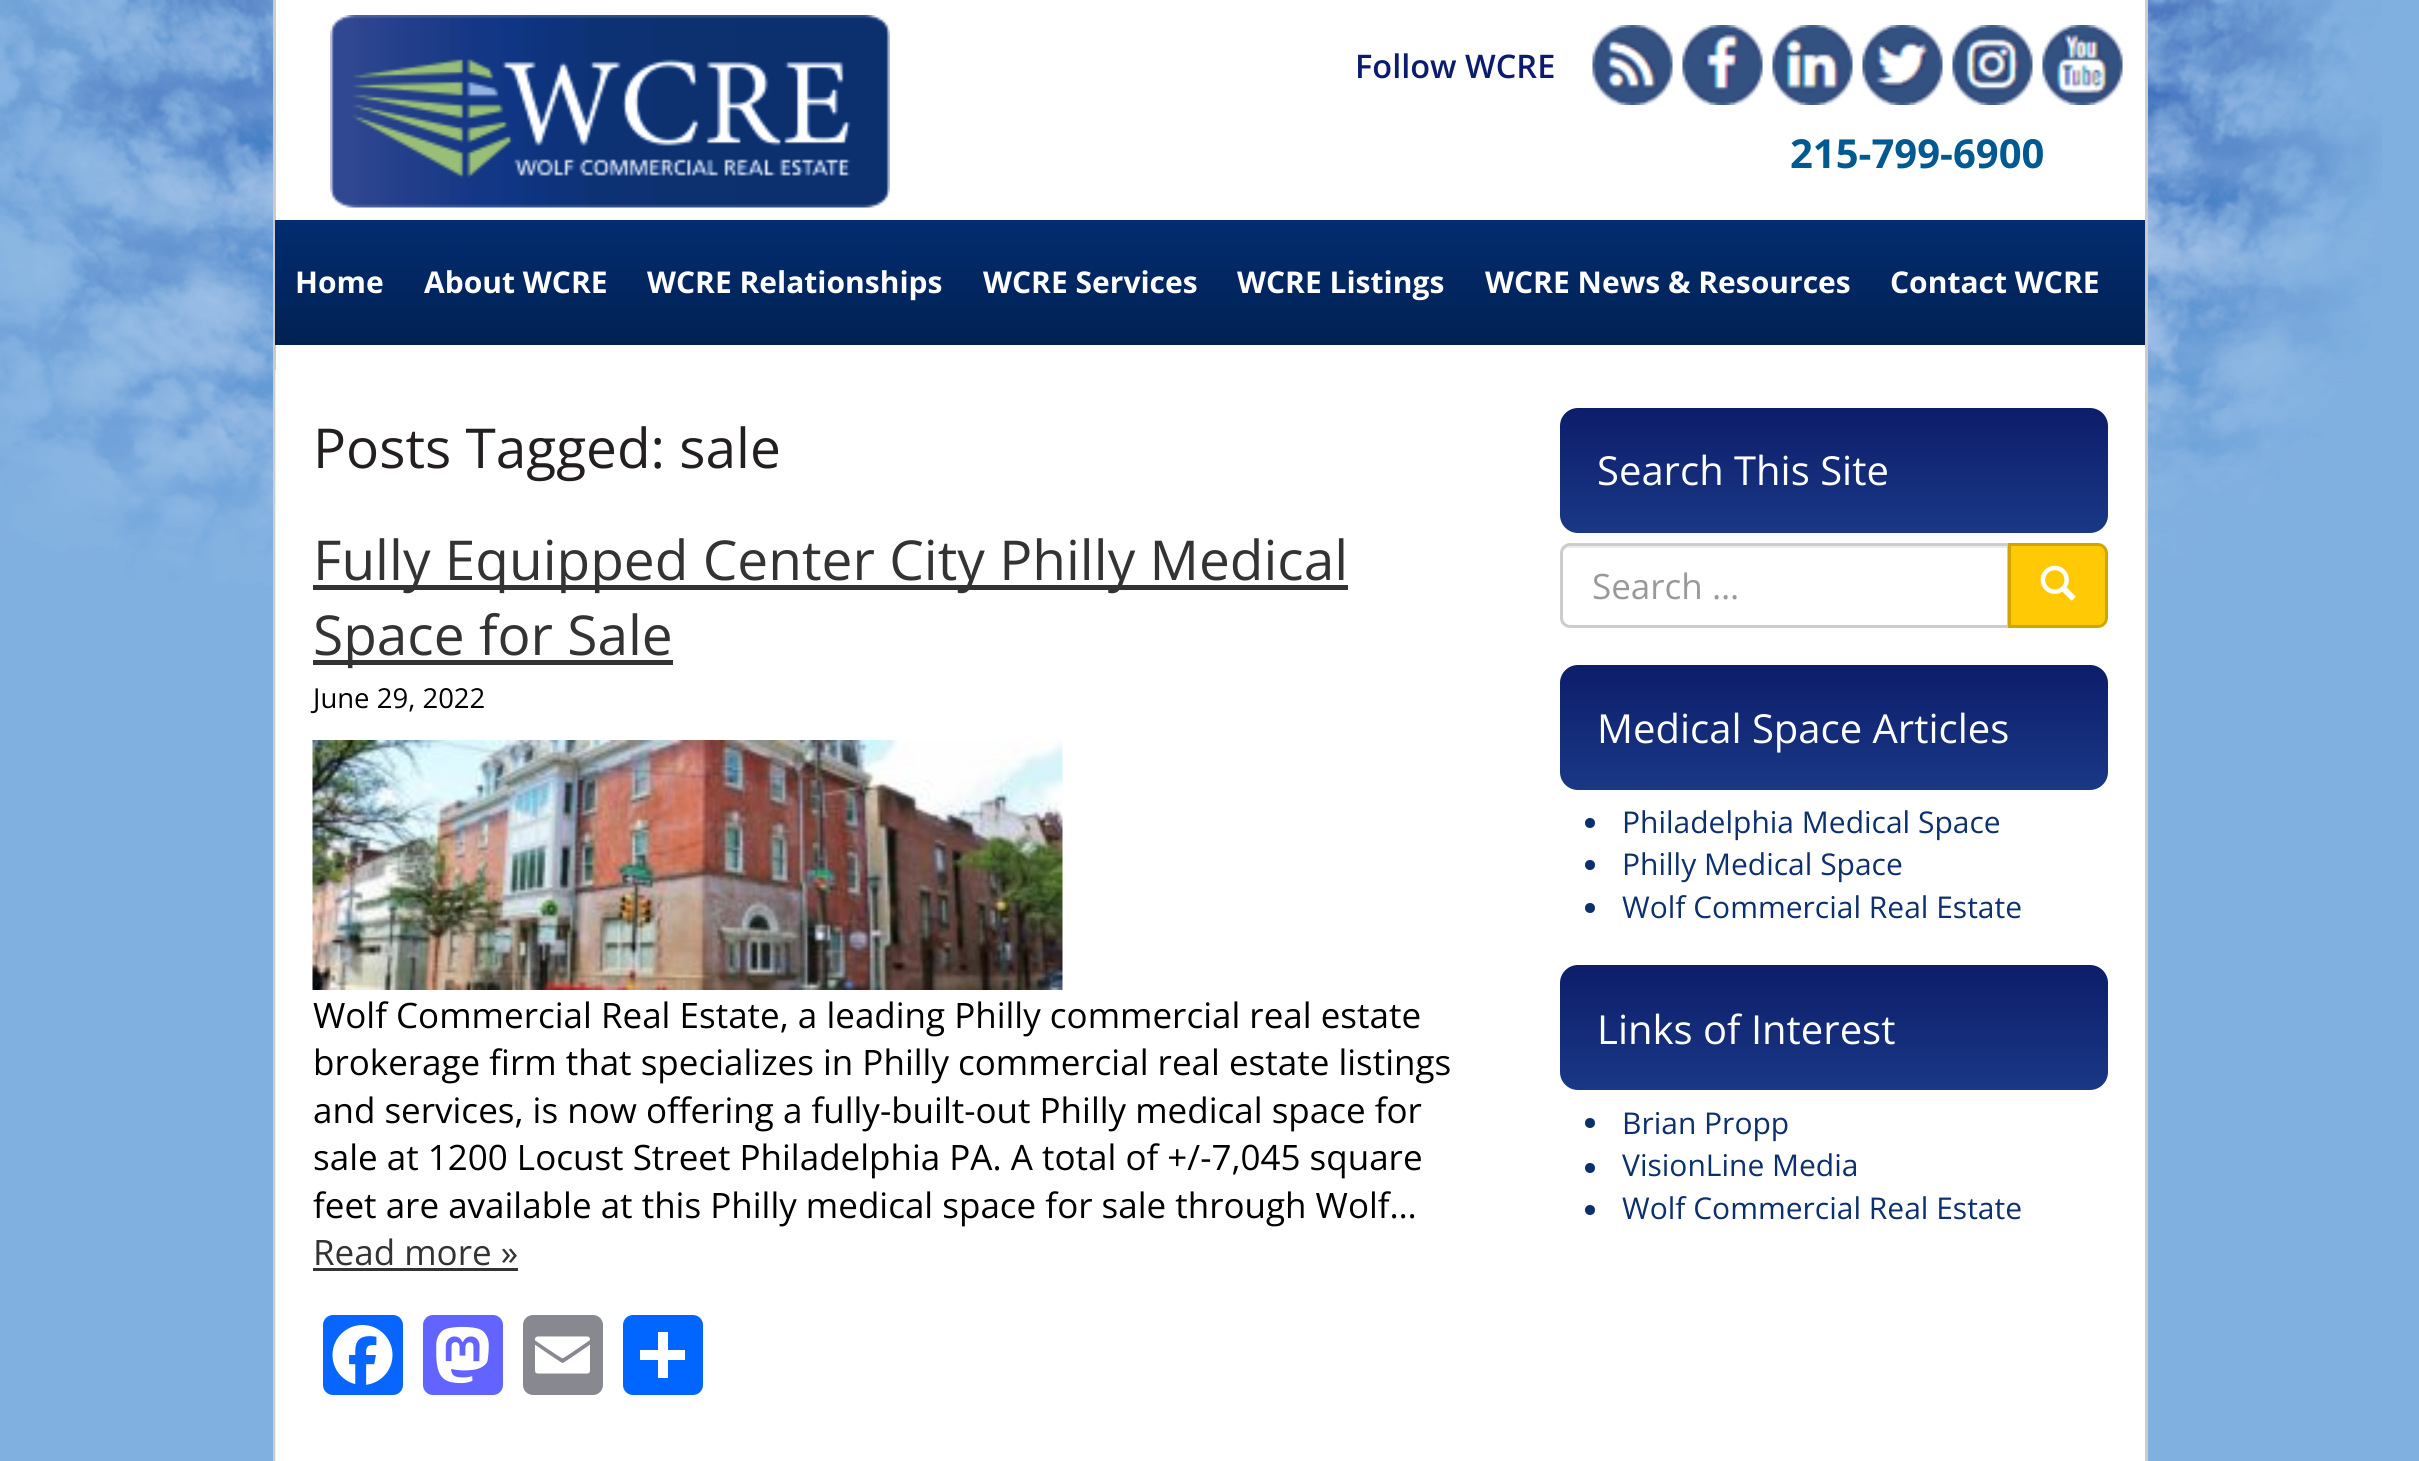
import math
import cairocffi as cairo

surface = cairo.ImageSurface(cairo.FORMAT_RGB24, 2419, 1461)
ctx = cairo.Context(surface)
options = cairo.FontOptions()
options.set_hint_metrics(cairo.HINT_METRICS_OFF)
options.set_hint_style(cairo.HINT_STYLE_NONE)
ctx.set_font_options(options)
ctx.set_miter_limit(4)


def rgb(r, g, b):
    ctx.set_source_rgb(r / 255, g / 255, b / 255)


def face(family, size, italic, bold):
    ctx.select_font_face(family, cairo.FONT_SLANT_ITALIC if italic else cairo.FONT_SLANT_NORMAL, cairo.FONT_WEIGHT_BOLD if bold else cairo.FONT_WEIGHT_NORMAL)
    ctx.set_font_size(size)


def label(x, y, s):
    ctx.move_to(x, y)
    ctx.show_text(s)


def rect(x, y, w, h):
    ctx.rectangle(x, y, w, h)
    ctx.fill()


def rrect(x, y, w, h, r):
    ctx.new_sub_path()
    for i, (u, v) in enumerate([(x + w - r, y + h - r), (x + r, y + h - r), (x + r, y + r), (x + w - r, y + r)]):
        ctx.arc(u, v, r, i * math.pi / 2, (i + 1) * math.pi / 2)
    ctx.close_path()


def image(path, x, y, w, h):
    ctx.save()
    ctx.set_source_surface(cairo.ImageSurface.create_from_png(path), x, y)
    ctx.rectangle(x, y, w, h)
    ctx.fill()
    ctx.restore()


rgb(127, 176, 224)
ctx.paint()
image('image0.png', 0, 0, 2382, 606)
rgb(255, 255, 255)
rect(276, 0, 1869, 1461)
rgb(204, 204, 204)
rect(2145, 0, 3, 1461)
rect(273, 0, 3, 1461)
image('image1.png', 330, 15, 560, 193)
face('Open Sans SemiBold', 32.5, 0, 0)
rgb(11, 27, 111)
label(1355, 78, 'Follow WCRE')
image('image2.png', 1592, 25, 81, 80)
image('image3.png', 1682, 25, 81, 80)
image('image4.png', 1772, 25, 81, 80)
image('image5.png', 1862, 25, 81, 80)
image('image6.png', 1952, 25, 81, 80)
image('image7.png', 2042, 25, 81, 80)
face('Open Sans', 40, 0, 1)
rgb(0, 89, 145)
label(1790, 168, '215-799-6900')
gradient = cairo.LinearGradient(1210, 220, 1210, 345)
gradient.add_color_stop_rgba(0, 0.008, 0.176, 0.439, 1)
gradient.add_color_stop_rgba(1, 0.004, 0.129, 0.325, 1)
ctx.set_source(gradient)
rect(275, 220, 1870, 125)
face('Open Sans', 30, 0, 1)
rgb(255, 255, 255)
label(295, 293, 'Home')
label(424, 293, 'About WCRE')
label(647, 293, 'WCRE Relationships')
label(983, 293, 'WCRE Services')
label(1237, 293, 'WCRE Listings')
label(1485, 293, 'WCRE News & Resources')
label(1890, 293, 'Contact WCRE')
ctx.set_source_rgba(1, 1, 1, 0.6)
rect(275, 370, 1, 1091)
face('Open Sans', 55, 0, 0)
rgb(35, 31, 32)
label(313, 468, 'Posts Tagged: sale')
rgb(51, 51, 51)
rect(313, 585, 1035, 5)
label(313, 580, 'Fully Equipped Center City Philly Medical')
rect(313, 660, 360, 5)
label(313, 655, 'Space for Sale')
face('Open Sans', 27.5, 0, 0)
rgb(0, 0, 0)
label(313, 708, 'June 29, 2022')
image('image8.png', 312, 740, 751, 250)
face('Open Sans', 35, 0, 0)
label(313, 1028, 'Wolf Commercial Real Estate, a leading Philly commercial real estate')
label(313, 1075, 'brokerage firm that specializes in Philly commercial real estate listings')
label(313, 1123, 'and services, is now offering a fully-built-out Philly medical space for')
label(313, 1170, 'sale at 1200 Locust Street Philadelphia PA. A total of +/-7,045 square')
label(313, 1218, 'feet are available at this Philly medical space for sale through Wolf…')
rgb(51, 51, 51)
label(313, 1265, 'Read more »')
rect(313, 1268, 205, 3)
rgb(8, 102, 255)
rrect(323, 1315, 80, 80, 10)
ctx.fill()
image('image9.png', 332, 1325, 61, 60)
rgb(99, 100, 255)
rrect(423, 1315, 80, 80, 10)
ctx.fill()
image('image10.png', 436, 1326, 53, 58)
rgb(136, 137, 144)
rrect(523, 1315, 80, 80, 10)
ctx.fill()
image('image11.png', 535, 1336, 55, 38)
rgb(1, 102, 255)
rrect(623, 1315, 80, 80, 10)
ctx.fill()
rgb(255, 255, 255)
rect(658, 1332, 10, 46)
rect(640, 1350, 45, 10)
gradient = cairo.LinearGradient(1834, 408, 1834, 533)
gradient.add_color_stop_rgba(0, 0.051, 0.114, 0.416, 1)
gradient.add_color_stop_rgba(1, 0.098, 0.22, 0.525, 1)
ctx.set_source(gradient)
rrect(1560, 408, 548, 125, 18)
ctx.fill()
face('Open Sans', 40, 0, 0)
rgb(255, 255, 255)
label(1597, 485, 'Search This Site')
rgb(236, 236, 236)
ctx.new_path()
ctx.move_to(1570, 548)
ctx.line_to(2008, 548)
ctx.line_to(2008, 545)
ctx.line_to(1571, 545)
ctx.curve_to(1567, 545, 1564, 548, 1563, 551)
ctx.curve_to(1565, 549, 1567, 548, 1570, 548)
ctx.close_path()
ctx.fill()
ctx.new_path()
ctx.move_to(1570, 544.5)
ctx.line_to(2008.5, 544.5)
ctx.line_to(2008.5, 626.5)
ctx.line_to(1570, 626.5)
ctx.curve_to(1565.5, 626.5, 1561.5, 622.5, 1561.5, 618)
ctx.line_to(1561.5, 553)
ctx.curve_to(1561.5, 548.5, 1565.5, 544.5, 1570, 544.5)
ctx.close_path()
rgb(204, 204, 204)
ctx.set_line_width(3)
ctx.stroke()
face('Open Sans', 35, 0, 0)
rgb(153, 153, 153)
label(1592, 599, 'Search …')
rgb(255, 202, 5)
ctx.new_path()
ctx.move_to(2009.5, 544.5)
ctx.line_to(2098, 544.5)
ctx.curve_to(2102.5, 544.5, 2106.5, 548.5, 2106.5, 553)
ctx.line_to(2106.5, 618)
ctx.curve_to(2106.5, 622.5, 2102.5, 626.5, 2098, 626.5)
ctx.line_to(2009.5, 626.5)
ctx.close_path()
ctx.fill_preserve()
rgb(209, 165, 0)
ctx.stroke()
image('image12.png', 2040, 565, 36, 36)
gradient = cairo.LinearGradient(1834, 665, 1834, 790)
gradient.add_color_stop_rgba(0, 0.051, 0.114, 0.416, 1)
gradient.add_color_stop_rgba(1, 0.098, 0.22, 0.525, 1)
ctx.set_source(gradient)
rrect(1560, 665, 548, 125, 18)
ctx.fill()
face('Open Sans', 40, 0, 0)
rgb(255, 255, 255)
label(1597, 743, 'Medical Space Articles')
rgb(12, 47, 110)
ctx.new_path()
ctx.arc(1590, 823, 5, 0, 2 * math.pi)
ctx.fill()
face('Open Sans', 30, 0, 0)
label(1622, 833, 'Philadelphia Medical Space')
ctx.new_path()
ctx.arc(1590, 865, 5, 0, 2 * math.pi)
ctx.fill()
label(1622, 875, 'Philly Medical Space')
ctx.new_path()
ctx.arc(1590, 908, 5, 0, 2 * math.pi)
ctx.fill()
label(1622, 918, 'Wolf Commercial Real Estate')
gradient = cairo.LinearGradient(1834, 965, 1834, 1090)
gradient.add_color_stop_rgba(0, 0.051, 0.114, 0.416, 1)
gradient.add_color_stop_rgba(1, 0.098, 0.22, 0.525, 1)
ctx.set_source(gradient)
rrect(1560, 965, 548, 125, 18)
ctx.fill()
face('Open Sans', 40, 0, 0)
rgb(255, 255, 255)
label(1597, 1044, 'Links of Interest')
rgb(12, 47, 110)
ctx.new_path()
ctx.arc(1590, 1123, 5, 0, 2 * math.pi)
ctx.fill()
face('Open Sans', 30, 0, 0)
label(1622, 1134, 'Brian Propp')
ctx.new_path()
ctx.arc(1590, 1168, 5, 0, 2 * math.pi)
ctx.fill()
label(1622, 1176, 'VisionLine Media')
ctx.new_path()
ctx.arc(1590, 1210, 5, 0, 2 * math.pi)
ctx.fill()
label(1622, 1219, 'Wolf Commercial Real Estate')
surface.write_to_png('render.png')
